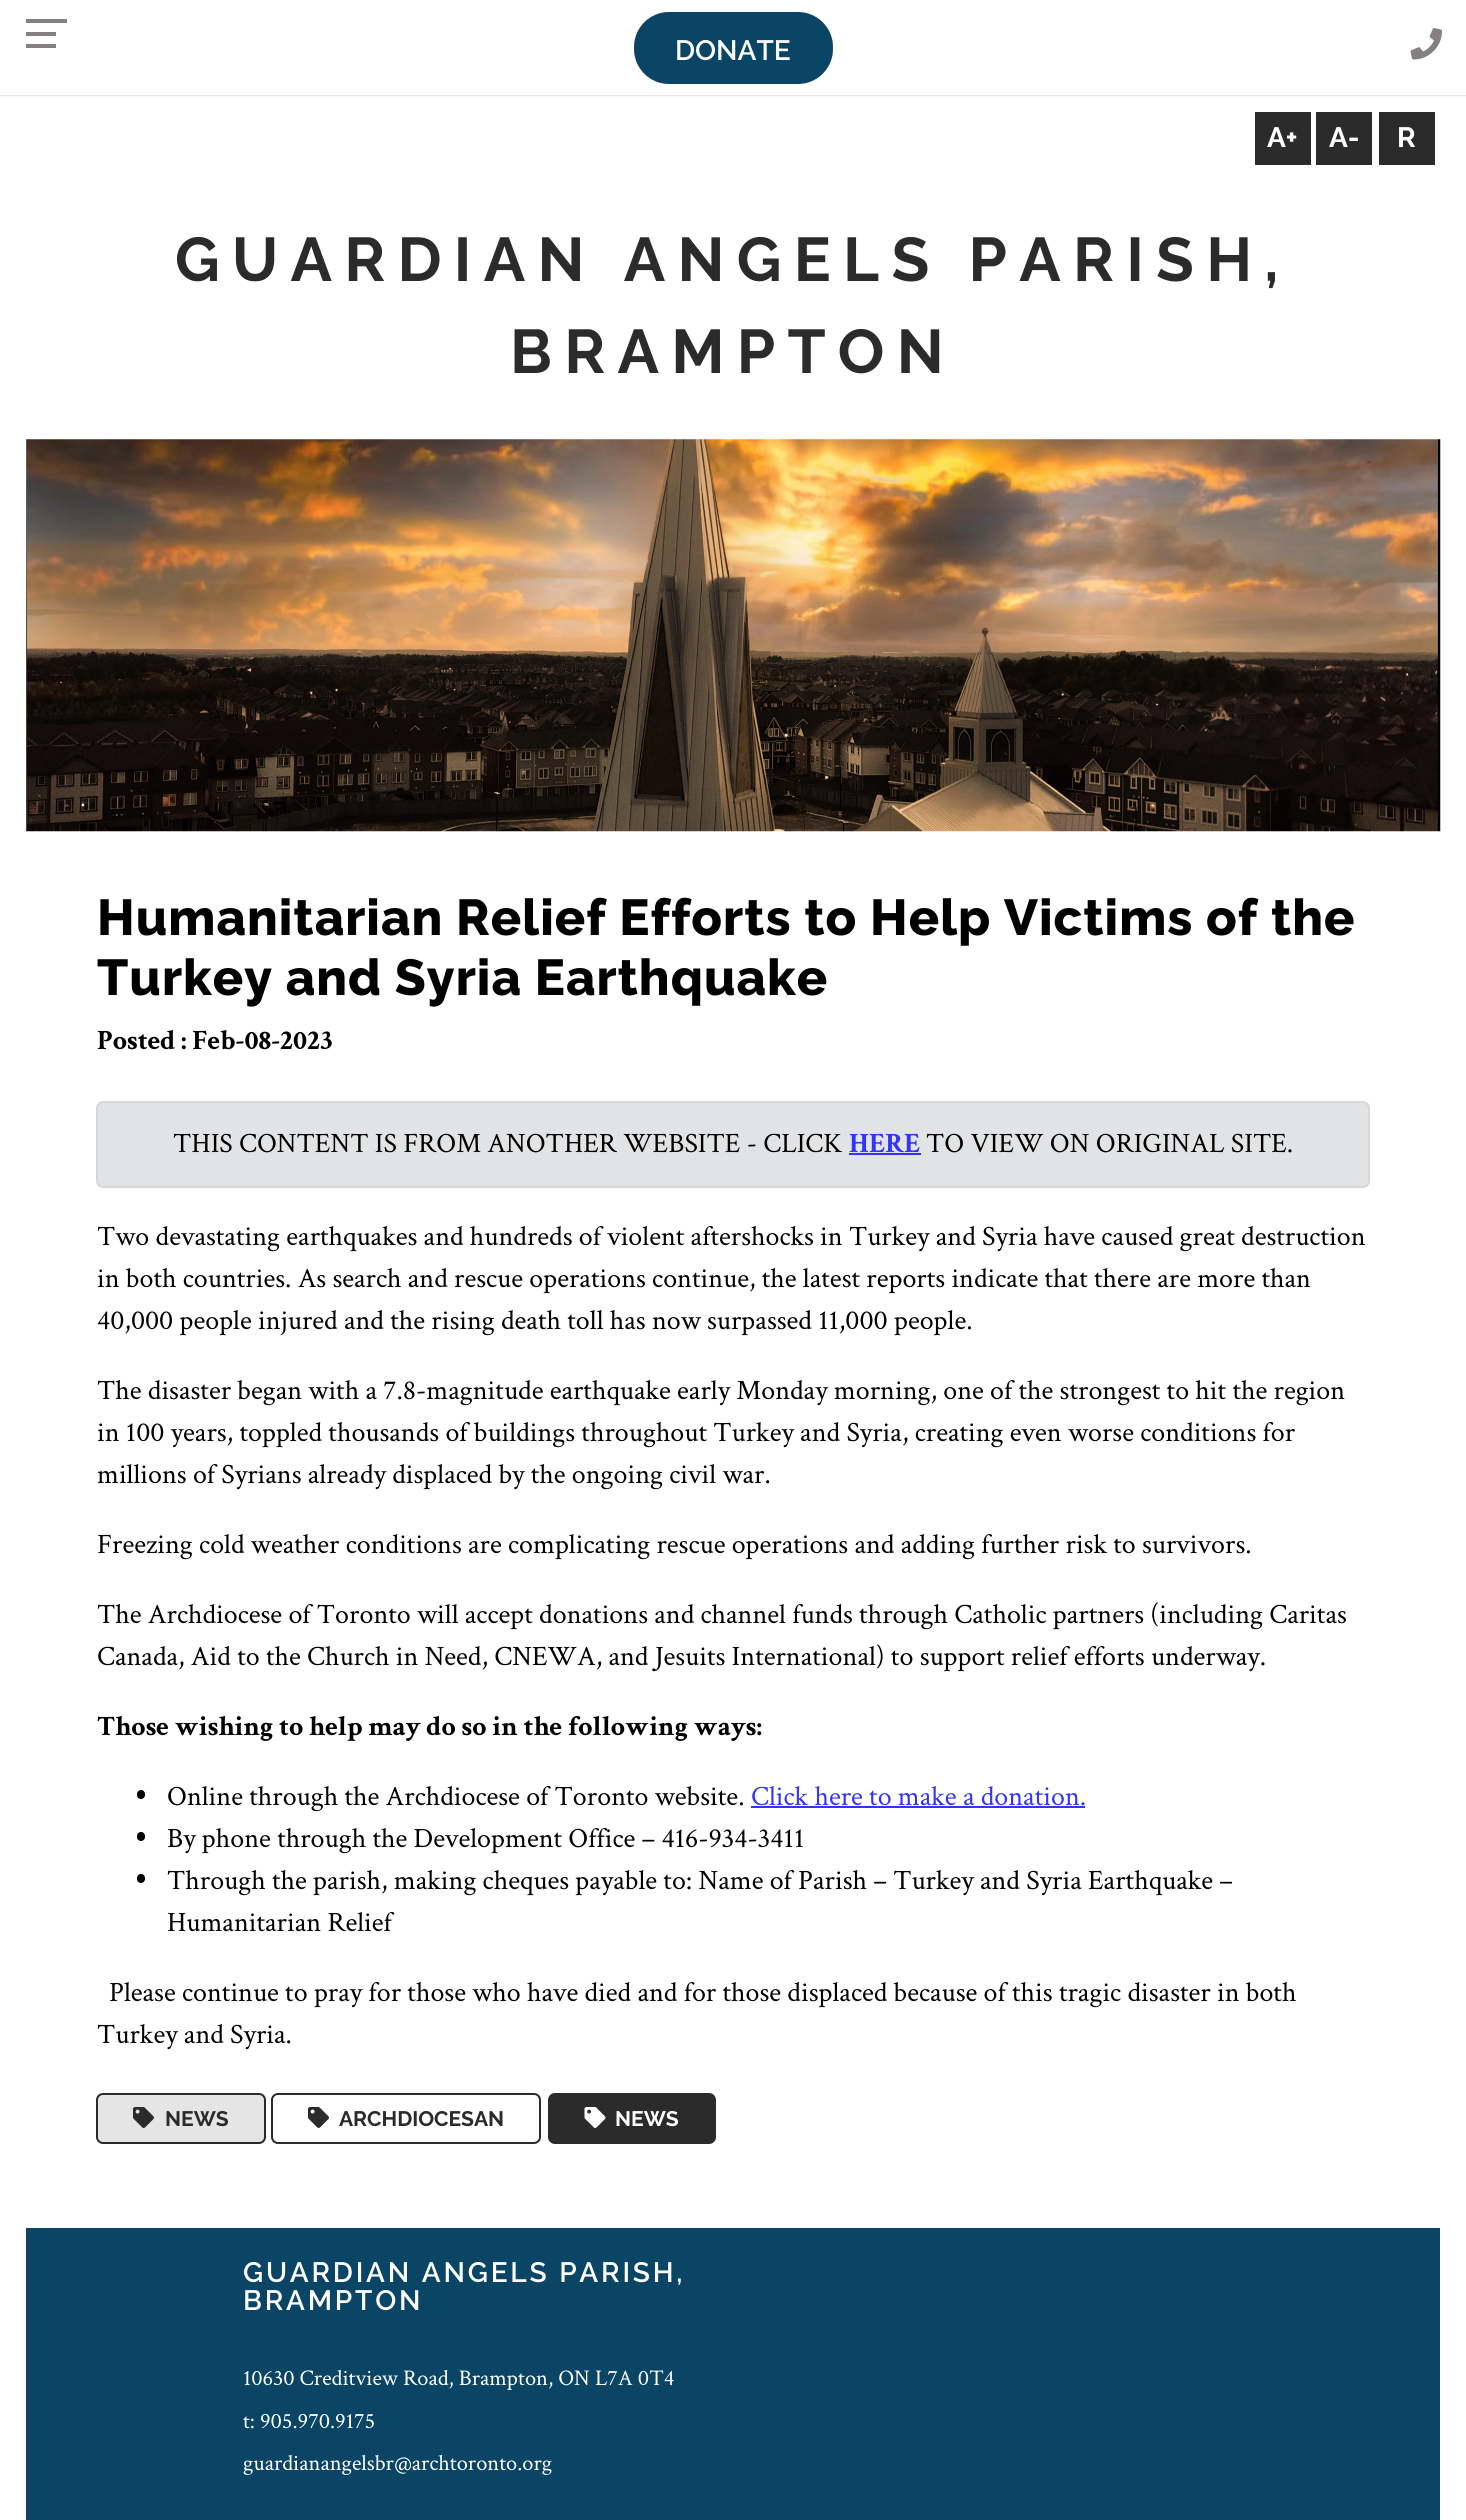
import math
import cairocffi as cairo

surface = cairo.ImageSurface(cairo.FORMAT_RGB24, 1466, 2520)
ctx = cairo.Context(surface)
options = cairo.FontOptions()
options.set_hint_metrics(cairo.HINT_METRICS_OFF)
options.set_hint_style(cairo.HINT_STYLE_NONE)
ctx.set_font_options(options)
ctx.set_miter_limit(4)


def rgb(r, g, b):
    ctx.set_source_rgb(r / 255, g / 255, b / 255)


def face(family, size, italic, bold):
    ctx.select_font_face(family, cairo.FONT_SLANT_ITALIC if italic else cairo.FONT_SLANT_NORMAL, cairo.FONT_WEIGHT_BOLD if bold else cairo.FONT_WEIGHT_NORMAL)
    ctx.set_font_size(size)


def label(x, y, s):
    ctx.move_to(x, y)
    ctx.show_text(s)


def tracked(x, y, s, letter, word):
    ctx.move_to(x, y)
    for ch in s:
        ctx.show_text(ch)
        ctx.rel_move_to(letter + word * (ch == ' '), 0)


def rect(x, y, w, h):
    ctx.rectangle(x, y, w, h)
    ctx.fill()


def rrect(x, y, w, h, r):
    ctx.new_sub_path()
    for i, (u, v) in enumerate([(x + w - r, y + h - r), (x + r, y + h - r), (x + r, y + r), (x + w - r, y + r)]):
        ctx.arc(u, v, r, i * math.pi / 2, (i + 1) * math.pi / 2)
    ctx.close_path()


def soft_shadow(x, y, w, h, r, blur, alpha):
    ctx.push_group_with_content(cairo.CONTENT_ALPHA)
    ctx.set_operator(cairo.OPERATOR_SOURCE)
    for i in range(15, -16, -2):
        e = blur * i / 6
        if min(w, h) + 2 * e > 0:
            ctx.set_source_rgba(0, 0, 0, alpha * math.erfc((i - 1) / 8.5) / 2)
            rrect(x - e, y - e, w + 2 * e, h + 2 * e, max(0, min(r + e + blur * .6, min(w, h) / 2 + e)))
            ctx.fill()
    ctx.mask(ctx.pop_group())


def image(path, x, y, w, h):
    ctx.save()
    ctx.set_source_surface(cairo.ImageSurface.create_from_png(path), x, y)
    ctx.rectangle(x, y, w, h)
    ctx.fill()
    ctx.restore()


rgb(255, 255, 255)
ctx.paint()
ctx.save()
ctx.set_fill_rule(cairo.FILL_RULE_EVEN_ODD)
ctx.new_path()
ctx.move_to(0, 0)
ctx.line_to(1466, 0)
ctx.line_to(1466, 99)
ctx.line_to(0, 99)
ctx.close_path()
ctx.move_to(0, 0)
ctx.line_to(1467, 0)
ctx.line_to(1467, 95)
ctx.line_to(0, 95)
ctx.close_path()
ctx.clip()
rgb(0, 0, 0)
soft_shadow(0, 0, 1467, 95, 0, 1, 0.3)
ctx.restore()
ctx.set_source_rgba(1, 1, 1, 0.85)
rect(0, 94, 1466, 1)
rgb(132, 128, 128)
rect(26, 32, 30, 4)
rect(26, 19, 41, 4)
rect(26, 44, 30, 4)
rgb(10, 69, 102)
rrect(634, 12, 199, 72, 35)
ctx.fill()
face('Raleway SemiBold', 28, 0, 0)
rgb(255, 255, 255)
label(675, 60, 'DONATE')
image('image0.png', 1410, 28, 32, 32)
rgb(43, 43, 43)
rect(1255, 112, 56, 53)
face('Raleway', 28, 0, 1)
rgb(255, 255, 255)
label(1267, 147, 'A+')
rgb(43, 43, 43)
rect(1316, 112, 56, 53)
rgb(255, 255, 255)
label(1329, 147, 'A-')
rgb(43, 43, 43)
rect(1379, 112, 56, 53)
rgb(255, 255, 255)
label(1397, 147, 'R')
face('Raleway', 61.6, 0, 1)
rgb(43, 43, 43)
tracked(175, 281, 'GUARDIAN ANGELS PARISH,', 12.3, 0)
tracked(510, 373, 'BRAMPTON', 12.3, 0)
image('image1.png', 26, 439, 1415, 393)
face('Raleway ExtraBold', 50.4, 0, 0)
rgb(0, 0, 0)
tracked(97, 935, 'Humanitarian Relief Efforts to Help Victims of the', 1, 0)
tracked(97, 995, 'Turkey and Syria Earthquake', 1, 0)
face('Crimson Text', 28, 0, 1)
label(97, 1049, 'Posted : Feb-08-2023')
rgb(226, 227, 229)
rrect(97, 1102, 1272, 85, 6)
ctx.fill_preserve()
rgb(214, 216, 219)
ctx.stroke()
face('Crimson Text', 28, 0, 0)
rgb(0, 0, 0)
label(173, 1152, 'THIS CONTENT IS FROM ANOTHER WEBSITE - CLICK')
face('Crimson Text', 28, 0, 1)
rgb(51, 51, 255)
label(849, 1152, 'HERE')
rect(849, 1153, 72, 2)
face('Crimson Text', 28, 0, 0)
rgb(0, 0, 0)
label(926, 1152, 'TO VIEW ON ORIGINAL SITE.')
label(97, 1245, 'Two devastating earthquakes and hundreds of violent aftershocks in Turkey and Syria have caused great destruction')
label(97, 1287, 'in both countries. As search and rescue operations continue, the latest reports indicate that there are more than')
label(97, 1329, '40,000 people injured and the rising death toll has now surpassed 11,000 people.')
label(97, 1399, 'The disaster began with a 7.8-magnitude earthquake early Monday morning, one of the strongest to hit the region')
label(97, 1441, 'in 100 years, toppled thousands of buildings throughout Turkey and Syria, creating even worse conditions for')
label(97, 1483, 'millions of Syrians already displaced by the ongoing civil war.')
label(97, 1553, 'Freezing cold weather conditions are complicating rescue operations and adding further risk to survivors.')
label(97, 1623, 'The Archdiocese of Toronto will accept donations and channel funds through Catholic partners (including Caritas')
label(97, 1665, 'Canada, Aid to the Church in Need, CNEWA, and Jesuits International) to support relief efforts underway.')
face('Crimson Text', 28, 0, 1)
label(97, 1735, 'Those wishing to help may do so in the following ways:')
rrect(137, 1790, 8, 9, 4)
ctx.fill()
face('Crimson Text', 28, 0, 0)
label(167, 1805, 'Online through the Archdiocese of Toronto website.')
rgb(51, 51, 255)
label(751, 1805, 'Click here to make a donation.')
rect(751, 1806, 334, 2)
rgb(0, 0, 0)
rrect(137, 1832, 8, 9, 4)
ctx.fill()
label(167, 1847, 'By phone through the Development Office – 416-934-3411')
rrect(137, 1874, 8, 9, 4)
ctx.fill()
label(167, 1889, 'Through the parish, making cheques payable to: Name of Parish – Turkey and Syria Earthquake –')
label(167, 1931, 'Humanitarian Relief')
label(109, 2001, 'Please continue to pray for those who have died and for those displaced because of this tragic disaster in both')
label(97, 2043, 'Turkey and Syria.')
rgb(229, 229, 229)
rrect(97, 2094, 168, 49, 6)
ctx.fill_preserve()
rgb(43, 43, 43)
ctx.stroke()
image('image2.png', 133, 2107, 21, 21)
face('Raleway', 21, 0, 1)
label(165, 2126, 'NEWS')
rrect(272, 2094, 268, 49, 6)
ctx.stroke()
image('image3.png', 308, 2107, 21, 21)
label(339, 2126, 'ARCHDIOCESAN')
rrect(549, 2094, 166, 49, 6)
ctx.fill_preserve()
ctx.stroke()
image('image4.png', 584, 2107, 22, 21)
rgb(255, 255, 255)
label(615, 2126, 'NEWS')
rgb(10, 69, 101)
rect(26, 2228, 1414, 292)
face('Raleway SemiBold', 28, 0, 0)
rgb(255, 255, 255)
tracked(243, 2282, 'GUARDIAN ANGELS PARISH,', 2.8, 0)
tracked(243, 2310, 'BRAMPTON', 2.8, 0)
face('Crimson Text', 22.4, 0, 0)
label(243, 2385, '10630 Creditview Road, Brampton, ON L7A 0T4')
label(243, 2428, 't: 905.970.9175')
label(243, 2470, 'guardianangelsbr@archtoronto.org')
surface.write_to_png('render.png')
